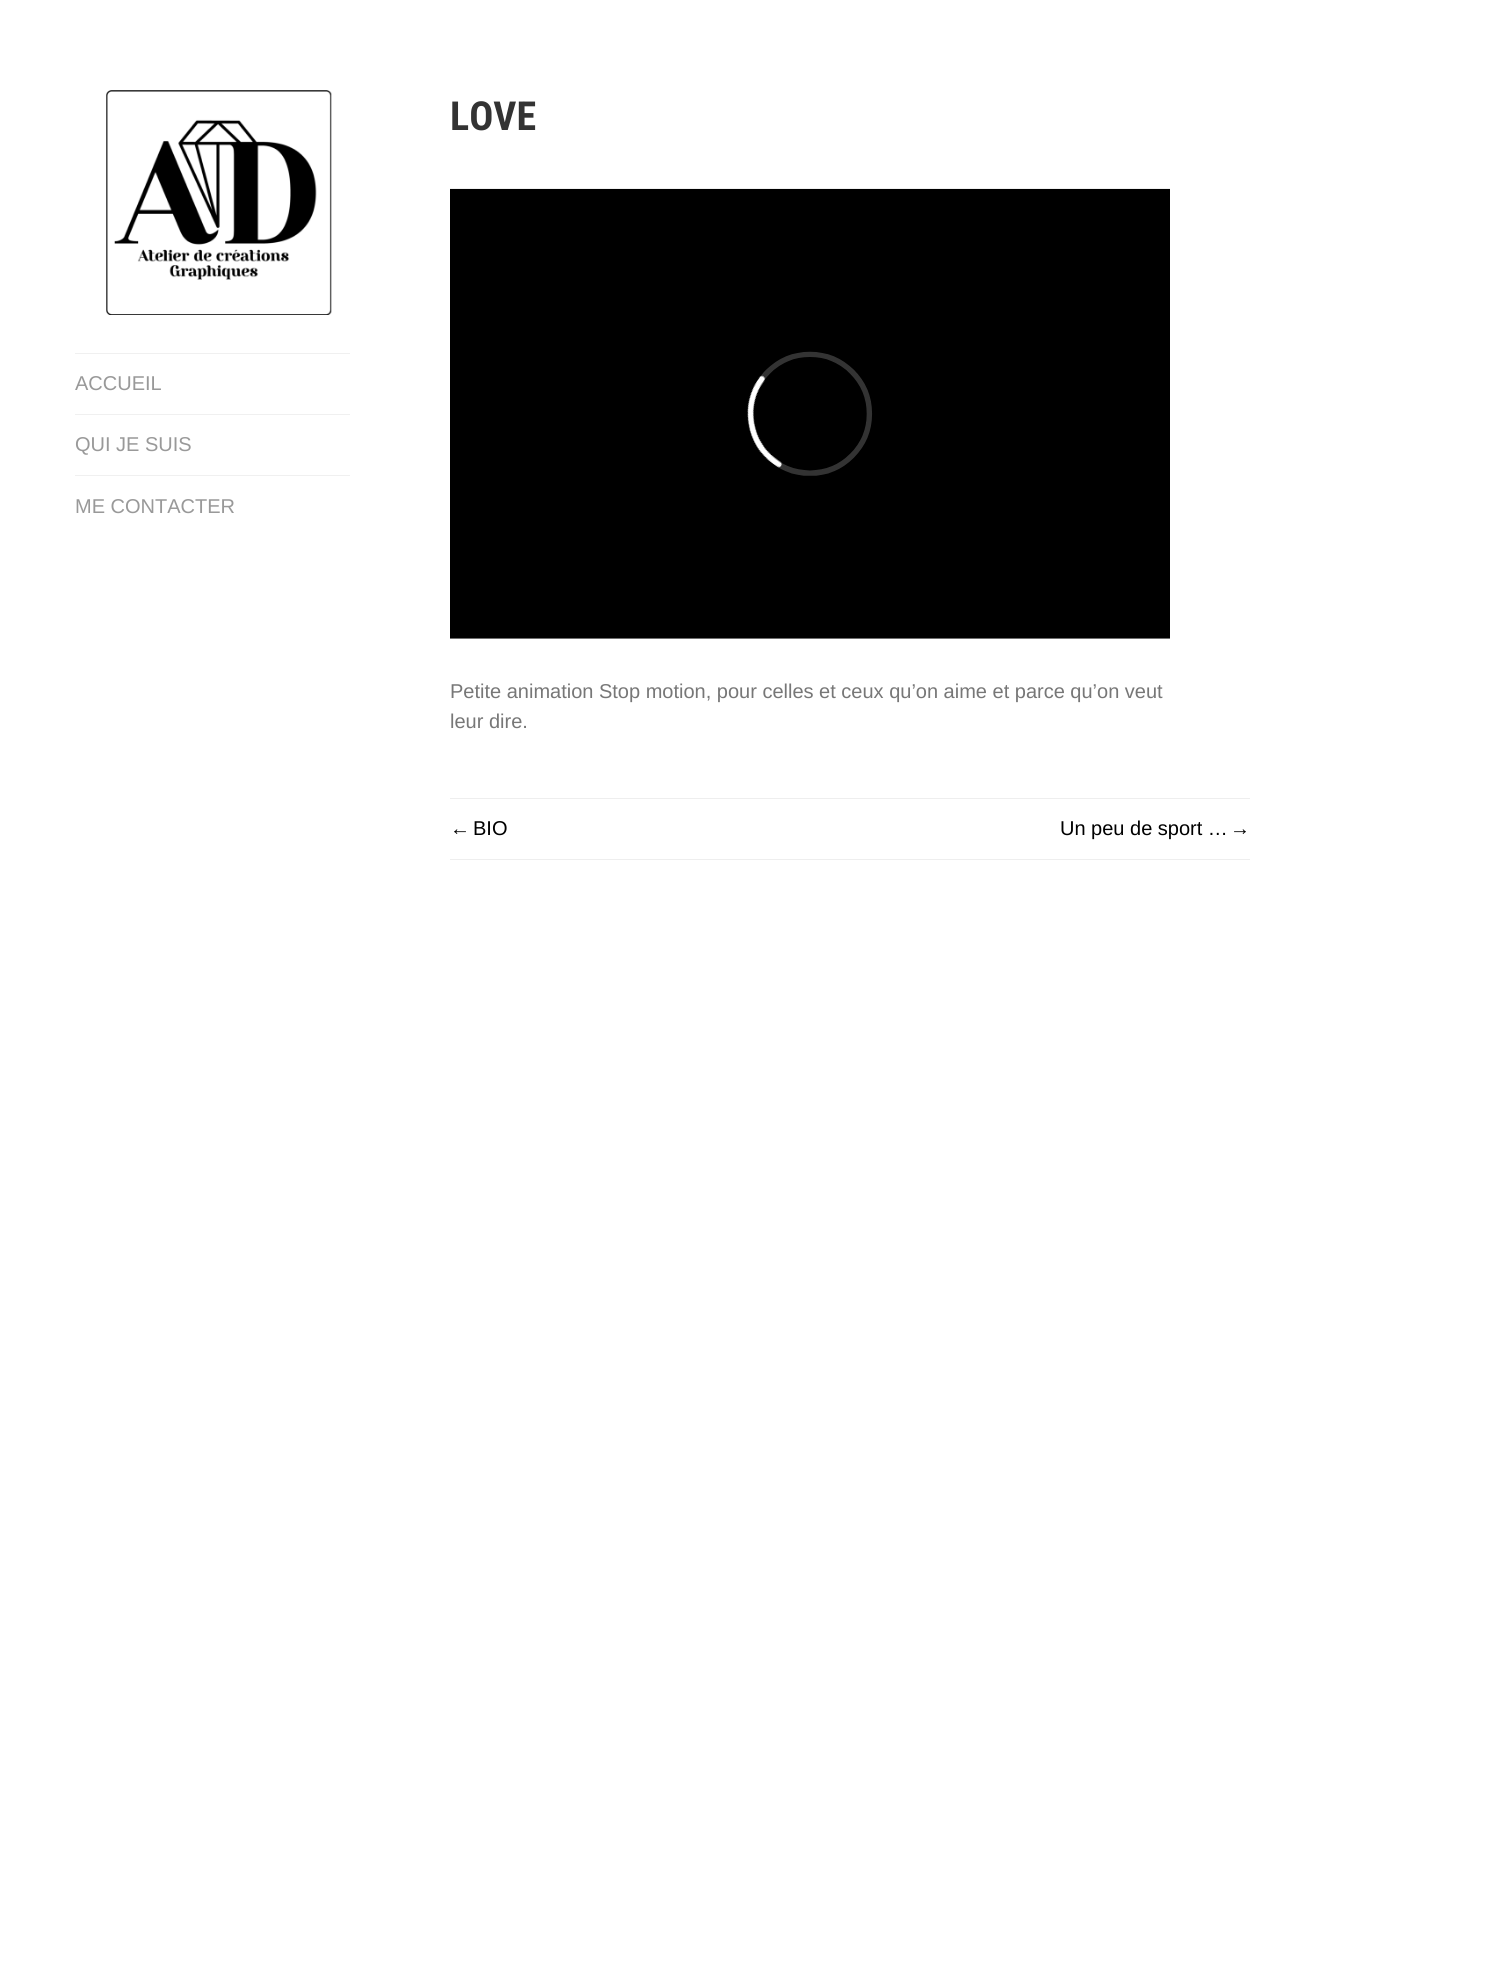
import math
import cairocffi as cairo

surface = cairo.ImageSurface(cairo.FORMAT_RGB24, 1489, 1965)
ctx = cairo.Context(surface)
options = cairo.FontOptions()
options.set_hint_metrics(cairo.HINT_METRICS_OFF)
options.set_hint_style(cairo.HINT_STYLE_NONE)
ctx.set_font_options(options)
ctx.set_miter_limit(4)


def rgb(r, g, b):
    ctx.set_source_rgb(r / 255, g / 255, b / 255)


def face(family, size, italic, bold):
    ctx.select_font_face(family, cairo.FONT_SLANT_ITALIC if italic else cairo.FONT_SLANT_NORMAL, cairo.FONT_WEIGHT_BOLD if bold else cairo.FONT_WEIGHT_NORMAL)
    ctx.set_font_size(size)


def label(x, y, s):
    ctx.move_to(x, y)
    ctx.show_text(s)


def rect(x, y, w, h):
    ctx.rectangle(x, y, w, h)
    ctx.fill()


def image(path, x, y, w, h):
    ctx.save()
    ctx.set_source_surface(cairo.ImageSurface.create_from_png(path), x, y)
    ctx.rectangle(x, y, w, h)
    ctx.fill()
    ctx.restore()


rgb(255, 255, 255)
ctx.paint()
image('image0.png', 106, 90, 226, 225)
rgb(240, 240, 240)
rect(75, 353, 275, 1)
face('Arimo', 20, 0, 0)
rgb(153, 153, 153)
label(75, 390, 'ACCUEIL')
rgb(240, 240, 240)
rect(75, 414, 275, 1)
rgb(153, 153, 153)
label(75, 451, 'QUI JE SUIS')
rgb(240, 240, 240)
rect(75, 475, 275, 1)
rgb(153, 153, 153)
label(75, 513, 'ME CONTACTER')
face('Roboto Condensed', 40, 0, 1)
rgb(51, 51, 51)
label(450, 130, 'LOVE')
image('image1.png', 450, 188, 720, 451)
face('Arimo', 20, 0, 0)
rgb(119, 119, 119)
label(450, 698, 'Petite animation Stop motion, pour celles et ceux qu’on aime et parce qu’on veut')
label(450, 728, 'leur dire.')
rgb(238, 238, 238)
rect(450, 798, 800, 1)
rect(450, 859, 800, 1)
face('Liberation Sans', 20, 0, 0)
rgb(0, 0, 0)
label(450, 835, '←')
face('Arimo', 20, 0, 0)
label(473, 835, 'BIO')
label(1060, 835, 'Un peu de sport …')
face('Liberation Sans', 20, 0, 0)
label(1230, 835, '→')
surface.write_to_png('render.png')
